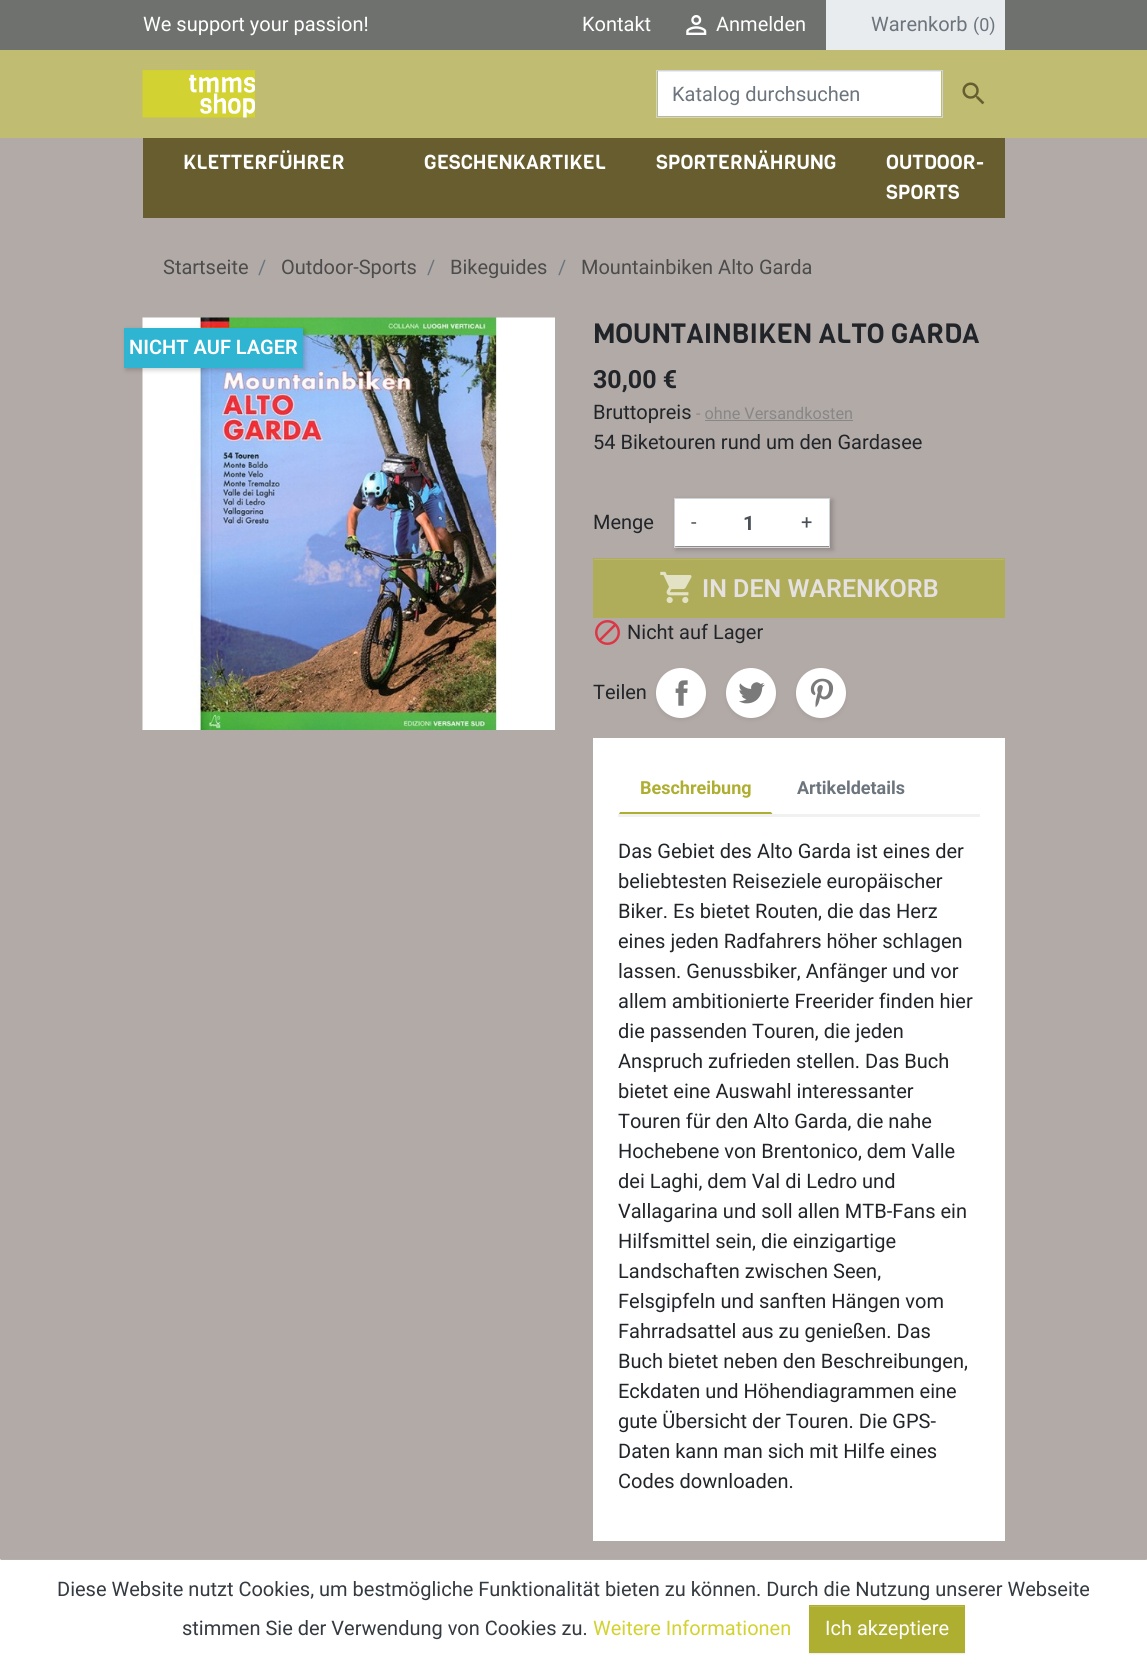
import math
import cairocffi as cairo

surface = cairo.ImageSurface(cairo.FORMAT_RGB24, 1147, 1668)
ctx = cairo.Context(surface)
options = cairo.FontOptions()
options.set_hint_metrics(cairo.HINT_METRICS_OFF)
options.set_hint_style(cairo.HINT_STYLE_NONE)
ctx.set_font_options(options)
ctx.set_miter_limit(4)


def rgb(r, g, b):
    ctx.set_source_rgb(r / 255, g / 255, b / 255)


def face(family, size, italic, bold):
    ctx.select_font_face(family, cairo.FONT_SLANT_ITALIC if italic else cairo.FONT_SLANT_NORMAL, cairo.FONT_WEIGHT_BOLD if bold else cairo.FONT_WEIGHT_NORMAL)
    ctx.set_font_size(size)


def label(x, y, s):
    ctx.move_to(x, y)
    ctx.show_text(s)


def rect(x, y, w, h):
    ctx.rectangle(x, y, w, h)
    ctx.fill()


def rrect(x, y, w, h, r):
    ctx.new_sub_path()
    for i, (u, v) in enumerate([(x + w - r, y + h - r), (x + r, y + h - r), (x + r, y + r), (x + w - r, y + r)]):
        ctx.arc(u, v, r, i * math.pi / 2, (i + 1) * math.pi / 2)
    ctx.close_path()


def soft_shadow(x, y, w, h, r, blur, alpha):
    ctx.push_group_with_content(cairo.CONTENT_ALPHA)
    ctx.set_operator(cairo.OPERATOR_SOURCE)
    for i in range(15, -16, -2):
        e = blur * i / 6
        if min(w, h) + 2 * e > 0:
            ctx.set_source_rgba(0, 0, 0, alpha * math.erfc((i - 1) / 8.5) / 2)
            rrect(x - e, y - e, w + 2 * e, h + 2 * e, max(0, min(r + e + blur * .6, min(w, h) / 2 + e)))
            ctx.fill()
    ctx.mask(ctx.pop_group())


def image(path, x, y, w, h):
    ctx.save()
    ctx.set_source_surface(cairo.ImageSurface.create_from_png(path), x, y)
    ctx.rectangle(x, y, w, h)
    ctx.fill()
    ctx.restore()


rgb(178, 170, 167)
ctx.paint()
rgb(110, 113, 110)
rect(0, 0, 1147, 50)
face('Roboto', 20, 0, 0)
rgb(255, 255, 255)
label(143, 31, 'We support your passion!')
label(582, 31, 'Kontakt')
image('image0.png', 686, 15, 21, 20)
label(716, 31, 'Anmelden')
rgb(233, 236, 239)
rect(826, 0, 179, 50)
rgb(108, 117, 125)
label(871, 31, 'Warenkorb')
face('Roboto', 18, 0, 0)
label(973, 31, '(0)')
rgb(192, 188, 114)
rect(0, 50, 1147, 88)
image('image1.png', 142, 70, 113, 48)
rgb(255, 255, 255)
rect(658, 72, 283, 44)
rgb(236, 236, 236)
rect(658, 71, 283, 1)
ctx.rectangle(656.5, 70.5, 286, 47)
rgb(206, 212, 218)
ctx.set_line_width(1)
ctx.stroke()
face('Roboto', 20, 0, 0)
rgb(108, 117, 125)
label(672, 101, 'Katalog durchsuchen')
image('image2.png', 962, 82, 23, 23)
rgb(103, 93, 47)
rect(143, 138, 862, 80)
face('Viga', 20, 0, 0)
rgb(255, 255, 255)
label(183, 169, 'KLETTERFÜHRER')
label(424, 169, 'GESCHENKARTIKEL')
label(656, 169, 'SPORTERNÄHRUNG')
label(886, 169, 'OUTDOOR-')
label(886, 199, 'SPORTS')
face('Roboto', 20, 0, 0)
rgb(76, 76, 76)
label(163, 274, 'Startseite')
rgb(108, 117, 125)
label(258, 274, '/')
rgb(76, 76, 76)
label(281, 274, 'Outdoor-Sports')
rgb(108, 117, 125)
label(427, 274, '/')
rgb(76, 76, 76)
label(450, 274, 'Bikeguides')
rgb(108, 117, 125)
label(558, 274, '/')
rgb(76, 76, 76)
label(581, 274, 'Mountainbiken Alto Garda')
image('image3.png', 142, 317, 413, 413)
rgb(0, 0, 0)
soft_shadow(126, 330, 179, 40, 0, 2.5, 0.2)
rgb(47, 181, 210)
rect(124, 328, 179, 40)
face('Roboto SemiBold', 20, 0, 0)
rgb(255, 255, 255)
label(129, 354, 'NICHT AUF LAGER')
face('Viga', 27.5, 0, 0)
rgb(33, 37, 41)
label(593, 343, 'MOUNTAINBIKEN ALTO GARDA')
face('Roboto', 25, 0, 1)
label(593, 388, '30,00 €')
face('Roboto', 20, 0, 0)
label(593, 419, 'Bruttopreis')
face('Roboto', 16.25, 0, 0)
rgb(135, 135, 135)
label(696, 419, '- ohne Versandkosten')
rect(705, 420, 148, 1)
face('Roboto', 20, 0, 0)
rgb(33, 37, 41)
label(593, 449, '54 Biketouren rund um den Gardasee')
label(593, 529, 'Menge')
rgb(0, 0, 0)
soft_shadow(676, 500, 157, 50, 0, 2.5, 0.2)
ctx.rectangle(674.5, 498.5, 155, 49)
rgb(206, 212, 218)
ctx.stroke()
rgb(255, 255, 255)
rect(675, 499, 154, 47)
rgb(73, 80, 87)
label(691, 529, '-')
face('Roboto', 20, 0, 1)
label(743, 530, '1')
face('Roboto', 20, 0, 0)
label(801, 529, '+')
rgb(175, 173, 90)
rect(593, 558, 412, 60)
rgb(183, 181, 110)
rect(594, 559, 410, 1)
image('image4.png', 660, 571, 32, 33)
face('Roboto SemiBold', 25, 0, 0)
rgb(228, 225, 224)
label(702, 597, 'IN DEN WARENKORB')
image('image5.png', 595, 620, 25, 25)
face('Roboto', 20, 0, 0)
rgb(33, 37, 41)
label(627, 639, 'Nicht auf Lager')
label(593, 699, 'Teilen')
rgb(0, 0, 0)
soft_shadow(656, 670, 50, 50, 25, 2.5, 0.07)
rgb(255, 255, 255)
ctx.arc(681, 693, 25, 0, 2 * math.pi)
ctx.fill()
image('image6.png', 675, 680, 13, 26)
rgb(0, 0, 0)
soft_shadow(726, 670, 50, 50, 25, 2.5, 0.07)
rgb(255, 255, 255)
ctx.arc(751, 693, 25, 0, 2 * math.pi)
ctx.fill()
image('image7.png', 739, 682, 26, 22)
rgb(0, 0, 0)
soft_shadow(796, 670, 50, 50, 25, 2.5, 0.07)
rgb(255, 255, 255)
ctx.arc(821, 693, 25, 0, 2 * math.pi)
ctx.fill()
image('image8.png', 810, 678, 24, 30)
rect(593, 738, 412, 803)
rgb(241, 241, 241)
rect(618, 814, 362, 3)
ctx.save()
ctx.rectangle(618, 763, 362, 51)
ctx.clip()
rgb(174, 174, 48)
ctx.new_path()
ctx.move_to(774, 816)
ctx.line_to(618, 816)
ctx.line_to(620, 812)
ctx.line_to(771, 812)
ctx.close_path()
ctx.fill()
ctx.restore()
face('Roboto', 18, 0, 1)
rgb(174, 174, 48)
label(640, 794, 'Beschreibung')
rgb(108, 117, 125)
label(797, 794, 'Artikeldetails')
face('Roboto', 20, 0, 0)
rgb(33, 37, 41)
label(618, 858, 'Das Gebiet des Alto Garda ist eines der')
label(618, 888, 'beliebtesten Reiseziele europäischer')
label(618, 918, 'Biker. Es bietet Routen, die das Herz')
label(618, 948, 'eines jeden Radfahrers höher schlagen')
label(618, 978, 'lassen. Genussbiker, Anfänger und vor')
label(618, 1008, 'allem ambitionierte Freerider finden hier')
label(618, 1038, 'die passenden Touren, die jeden')
label(618, 1068, 'Anspruch zufrieden stellen. Das Buch')
label(618, 1098, 'bietet eine Auswahl interessanter')
label(618, 1128, 'Touren für den Alto Garda, die nahe')
label(618, 1158, 'Hochebene von Brentonico, dem Valle')
label(618, 1188, 'dei Laghi, dem Val di Ledro und')
label(618, 1218, 'Vallagarina und soll allen MTB-Fans ein')
label(618, 1248, 'Hilfsmittel sein, die einzigartige')
label(618, 1278, 'Landschaften zwischen Seen,')
label(618, 1308, 'Felsgipfeln und sanften Hängen vom')
label(618, 1338, 'Fahrradsattel aus zu genießen. Das')
label(618, 1368, 'Buch bietet neben den Beschreibungen,')
label(618, 1398, 'Eckdaten und Höhendiagrammen eine')
label(618, 1428, 'gute Übersicht der Touren. Die GPS-')
label(618, 1458, 'Daten kann man sich mit Hilfe eines')
label(618, 1488, 'Codes downloaden.')
rgb(255, 255, 255)
rect(0, 1559, 1147, 109)
rgb(182, 175, 173)
ctx.new_path()
ctx.move_to(0, 1559)
ctx.line_to(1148, 1559)
ctx.line_to(1146, 1560)
ctx.line_to(1, 1560)
ctx.close_path()
ctx.fill()
rgb(52, 58, 64)
label(57, 1596, 'Diese Website nutzt Cookies, um bestmögliche Funktionalität bieten zu können. Durch die Nutzung unserer Webseite')
label(182, 1635, 'stimmen Sie der Verwendung von Cookies zu.')
rgb(210, 210, 49)
label(593, 1635, 'Weitere Informationen')
rgb(0, 0, 0)
soft_shadow(809, 1606, 156, 48, 0, 0.5, 0.07)
rgb(174, 174, 48)
rect(809, 1605, 156, 48)
rgb(186, 186, 79)
rect(810, 1606, 154, 1)
rgb(255, 255, 255)
label(825, 1635, 'Ich akzeptiere')
surface.write_to_png('render.png')
